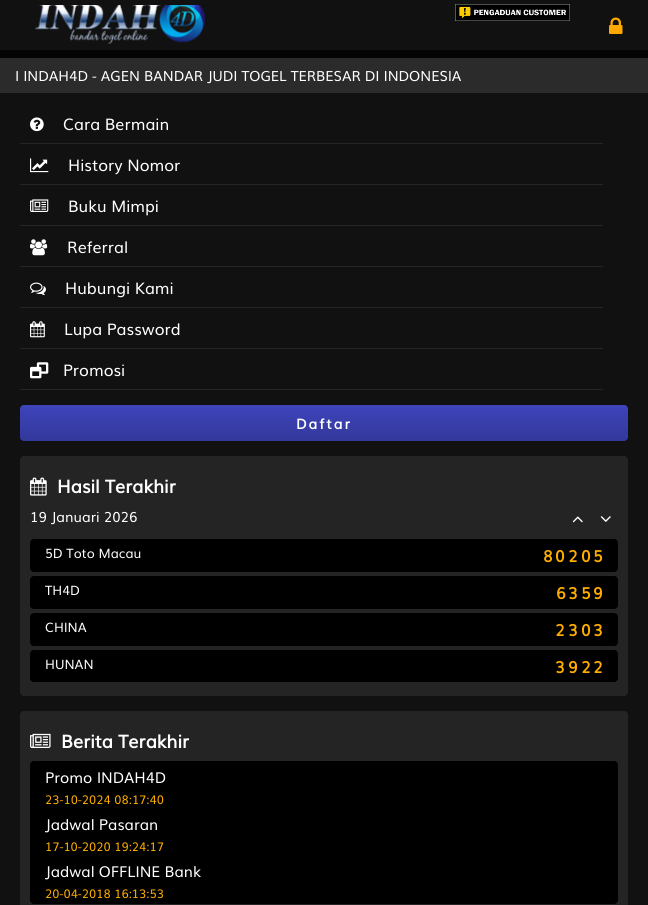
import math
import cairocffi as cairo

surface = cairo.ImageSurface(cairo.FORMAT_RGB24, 648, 905)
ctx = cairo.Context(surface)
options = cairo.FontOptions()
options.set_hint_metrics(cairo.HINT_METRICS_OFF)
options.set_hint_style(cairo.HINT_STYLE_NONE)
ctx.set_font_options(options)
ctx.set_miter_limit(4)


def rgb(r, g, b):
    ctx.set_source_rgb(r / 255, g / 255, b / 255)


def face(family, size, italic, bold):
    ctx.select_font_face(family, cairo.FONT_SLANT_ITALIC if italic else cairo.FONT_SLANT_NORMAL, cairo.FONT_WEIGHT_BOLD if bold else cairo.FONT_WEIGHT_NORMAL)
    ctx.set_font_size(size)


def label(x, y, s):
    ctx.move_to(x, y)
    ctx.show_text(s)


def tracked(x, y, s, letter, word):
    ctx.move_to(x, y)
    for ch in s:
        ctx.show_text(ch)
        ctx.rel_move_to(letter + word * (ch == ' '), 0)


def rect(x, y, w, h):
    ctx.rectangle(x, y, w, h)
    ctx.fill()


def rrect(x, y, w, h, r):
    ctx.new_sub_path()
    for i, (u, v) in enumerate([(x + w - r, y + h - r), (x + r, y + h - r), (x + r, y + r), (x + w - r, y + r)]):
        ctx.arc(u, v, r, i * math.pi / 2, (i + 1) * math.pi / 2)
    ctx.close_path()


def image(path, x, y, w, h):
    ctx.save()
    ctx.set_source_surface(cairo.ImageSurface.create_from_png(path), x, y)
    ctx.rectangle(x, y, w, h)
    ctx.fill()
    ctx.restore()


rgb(255, 255, 255)
ctx.paint()
image('image0.png', 0, 50, 648, 8)
rgb(17, 17, 17)
rect(0, 0, 648, 50)
image('image1.png', 34, 5, 172, 39)
image('image2.png', 609, 17, 14, 17)
image('image3.png', 455, 4, 115, 17)
rgb(43, 43, 43)
rect(0, 58, 648, 35)
face('Muli', 14, 0, 0)
rgb(255, 255, 255)
label(15, 81, 'I INDAH4D - AGEN BANDAR JUDI TOGEL TERBESAR DI INDONESIA')
rgb(17, 17, 17)
rect(0, 93, 648, 812)
rgb(37, 37, 37)
rect(20, 143, 583, 1)
image('image4.png', 30, 117, 14, 15)
face('Muli', 16, 0, 0)
rgb(255, 255, 255)
label(63, 130, 'Cara Bermain')
rgb(37, 37, 37)
rect(20, 184, 583, 1)
image('image5.png', 30, 158, 19, 15)
rgb(255, 255, 255)
label(68, 171, 'History Nomor')
rgb(37, 37, 37)
rect(20, 225, 583, 1)
image('image6.png', 30, 199, 19, 13)
rgb(255, 255, 255)
label(68, 212, 'Buku Mimpi')
rgb(37, 37, 37)
rect(20, 266, 583, 1)
image('image7.png', 30, 239, 18, 17)
rgb(255, 255, 255)
label(67, 253, 'Referral')
rgb(37, 37, 37)
rect(20, 307, 583, 1)
image('image8.png', 30, 282, 16, 14)
rgb(255, 255, 255)
label(65, 294, 'Hubungi Kami')
rgb(37, 37, 37)
rect(20, 348, 583, 1)
image('image9.png', 30, 321, 15, 17)
rgb(255, 255, 255)
label(64, 335, 'Lupa Password')
rgb(37, 37, 37)
rect(20, 389, 583, 1)
image('image10.png', 30, 362, 19, 17)
rgb(255, 255, 255)
label(63, 376, 'Promosi')
gradient = cairo.LinearGradient(324, 405, 324, 441)
gradient.add_color_stop_rgba(0, 0.243, 0.267, 0.733, 1)
gradient.add_color_stop_rgba(1, 0.2, 0.22, 0.608, 1)
ctx.set_source(gradient)
rrect(20, 405, 608, 36, 4)
ctx.fill()
face('Muli', 14, 0, 1)
rgb(255, 255, 255)
tracked(296, 429, 'Daftar', 2, 0)
rgb(36, 36, 36)
rrect(20, 456, 608, 240, 4)
ctx.fill()
image('image11.png', 30, 477, 17, 19)
face('Muli', 18, 0, 1)
rgb(255, 255, 255)
label(57, 493, 'Hasil Terakhir')
face('Muli', 14, 0, 0)
label(30, 522, '19 Januari 2026')
image('image12.png', 572, 516, 11, 7)
image('image13.png', 600, 516, 11, 6)
rgb(0, 0, 0)
rrect(30, 539, 588, 33, 4)
ctx.fill()
face('Muli', 13, 0, 0)
rgb(255, 255, 255)
label(45, 558, '5D Toto Macau')
face('Muli', 16, 0, 1)
rgb(255, 174, 0)
label(543, 562, '8')
label(555, 562, '0')
label(568, 562, '2')
label(581, 562, '0')
label(593, 562, '5')
rgb(0, 0, 0)
rrect(30, 576, 588, 33, 4)
ctx.fill()
face('Muli', 13, 0, 0)
rgb(255, 255, 255)
label(45, 595, 'TH4D')
face('Muli', 16, 0, 1)
rgb(255, 174, 0)
label(556, 599, '6')
label(568, 599, '3')
label(581, 599, '5')
label(593, 599, '9')
rgb(0, 0, 0)
rrect(30, 613, 588, 33, 4)
ctx.fill()
face('Muli', 13, 0, 0)
rgb(255, 255, 255)
label(45, 632, 'CHINA')
face('Muli', 16, 0, 1)
rgb(255, 174, 0)
label(555, 636, '2')
label(568, 636, '3')
label(581, 636, '0')
label(593, 636, '3')
rgb(0, 0, 0)
rrect(30, 650, 588, 32, 4)
ctx.fill()
face('Muli', 13, 0, 0)
rgb(255, 255, 255)
label(45, 669, 'HUNAN')
face('Muli', 16, 0, 1)
rgb(255, 174, 0)
label(555, 673, '3')
label(568, 673, '9')
label(581, 673, '2')
label(593, 673, '2')
rgb(36, 36, 36)
rrect(20, 711, 608, 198, 4)
ctx.fill()
image('image14.png', 30, 733, 21, 15)
face('Muli', 18, 0, 1)
rgb(255, 255, 255)
label(61, 748, 'Berita Terakhir')
rgb(0, 0, 0)
rrect(30, 761, 588, 143, 4)
ctx.fill()
face('Muli', 15, 0, 0)
rgb(255, 255, 255)
label(45, 783, 'Promo INDAH4D')
face('Muli', 12, 0, 0)
rgb(255, 174, 0)
label(45, 804, '23-10-2024 08:17:40')
face('Muli', 15, 0, 0)
rgb(255, 255, 255)
label(45, 830, 'Jadwal Pasaran')
face('Muli', 12, 0, 0)
rgb(255, 174, 0)
label(45, 851, '17-10-2020 19:24:17')
face('Muli', 15, 0, 0)
rgb(255, 255, 255)
label(45, 877, 'Jadwal OFFLINE Bank')
face('Muli', 12, 0, 0)
rgb(255, 174, 0)
label(45, 898, '20-04-2018 16:13:53')
surface.write_to_png('render.png')
